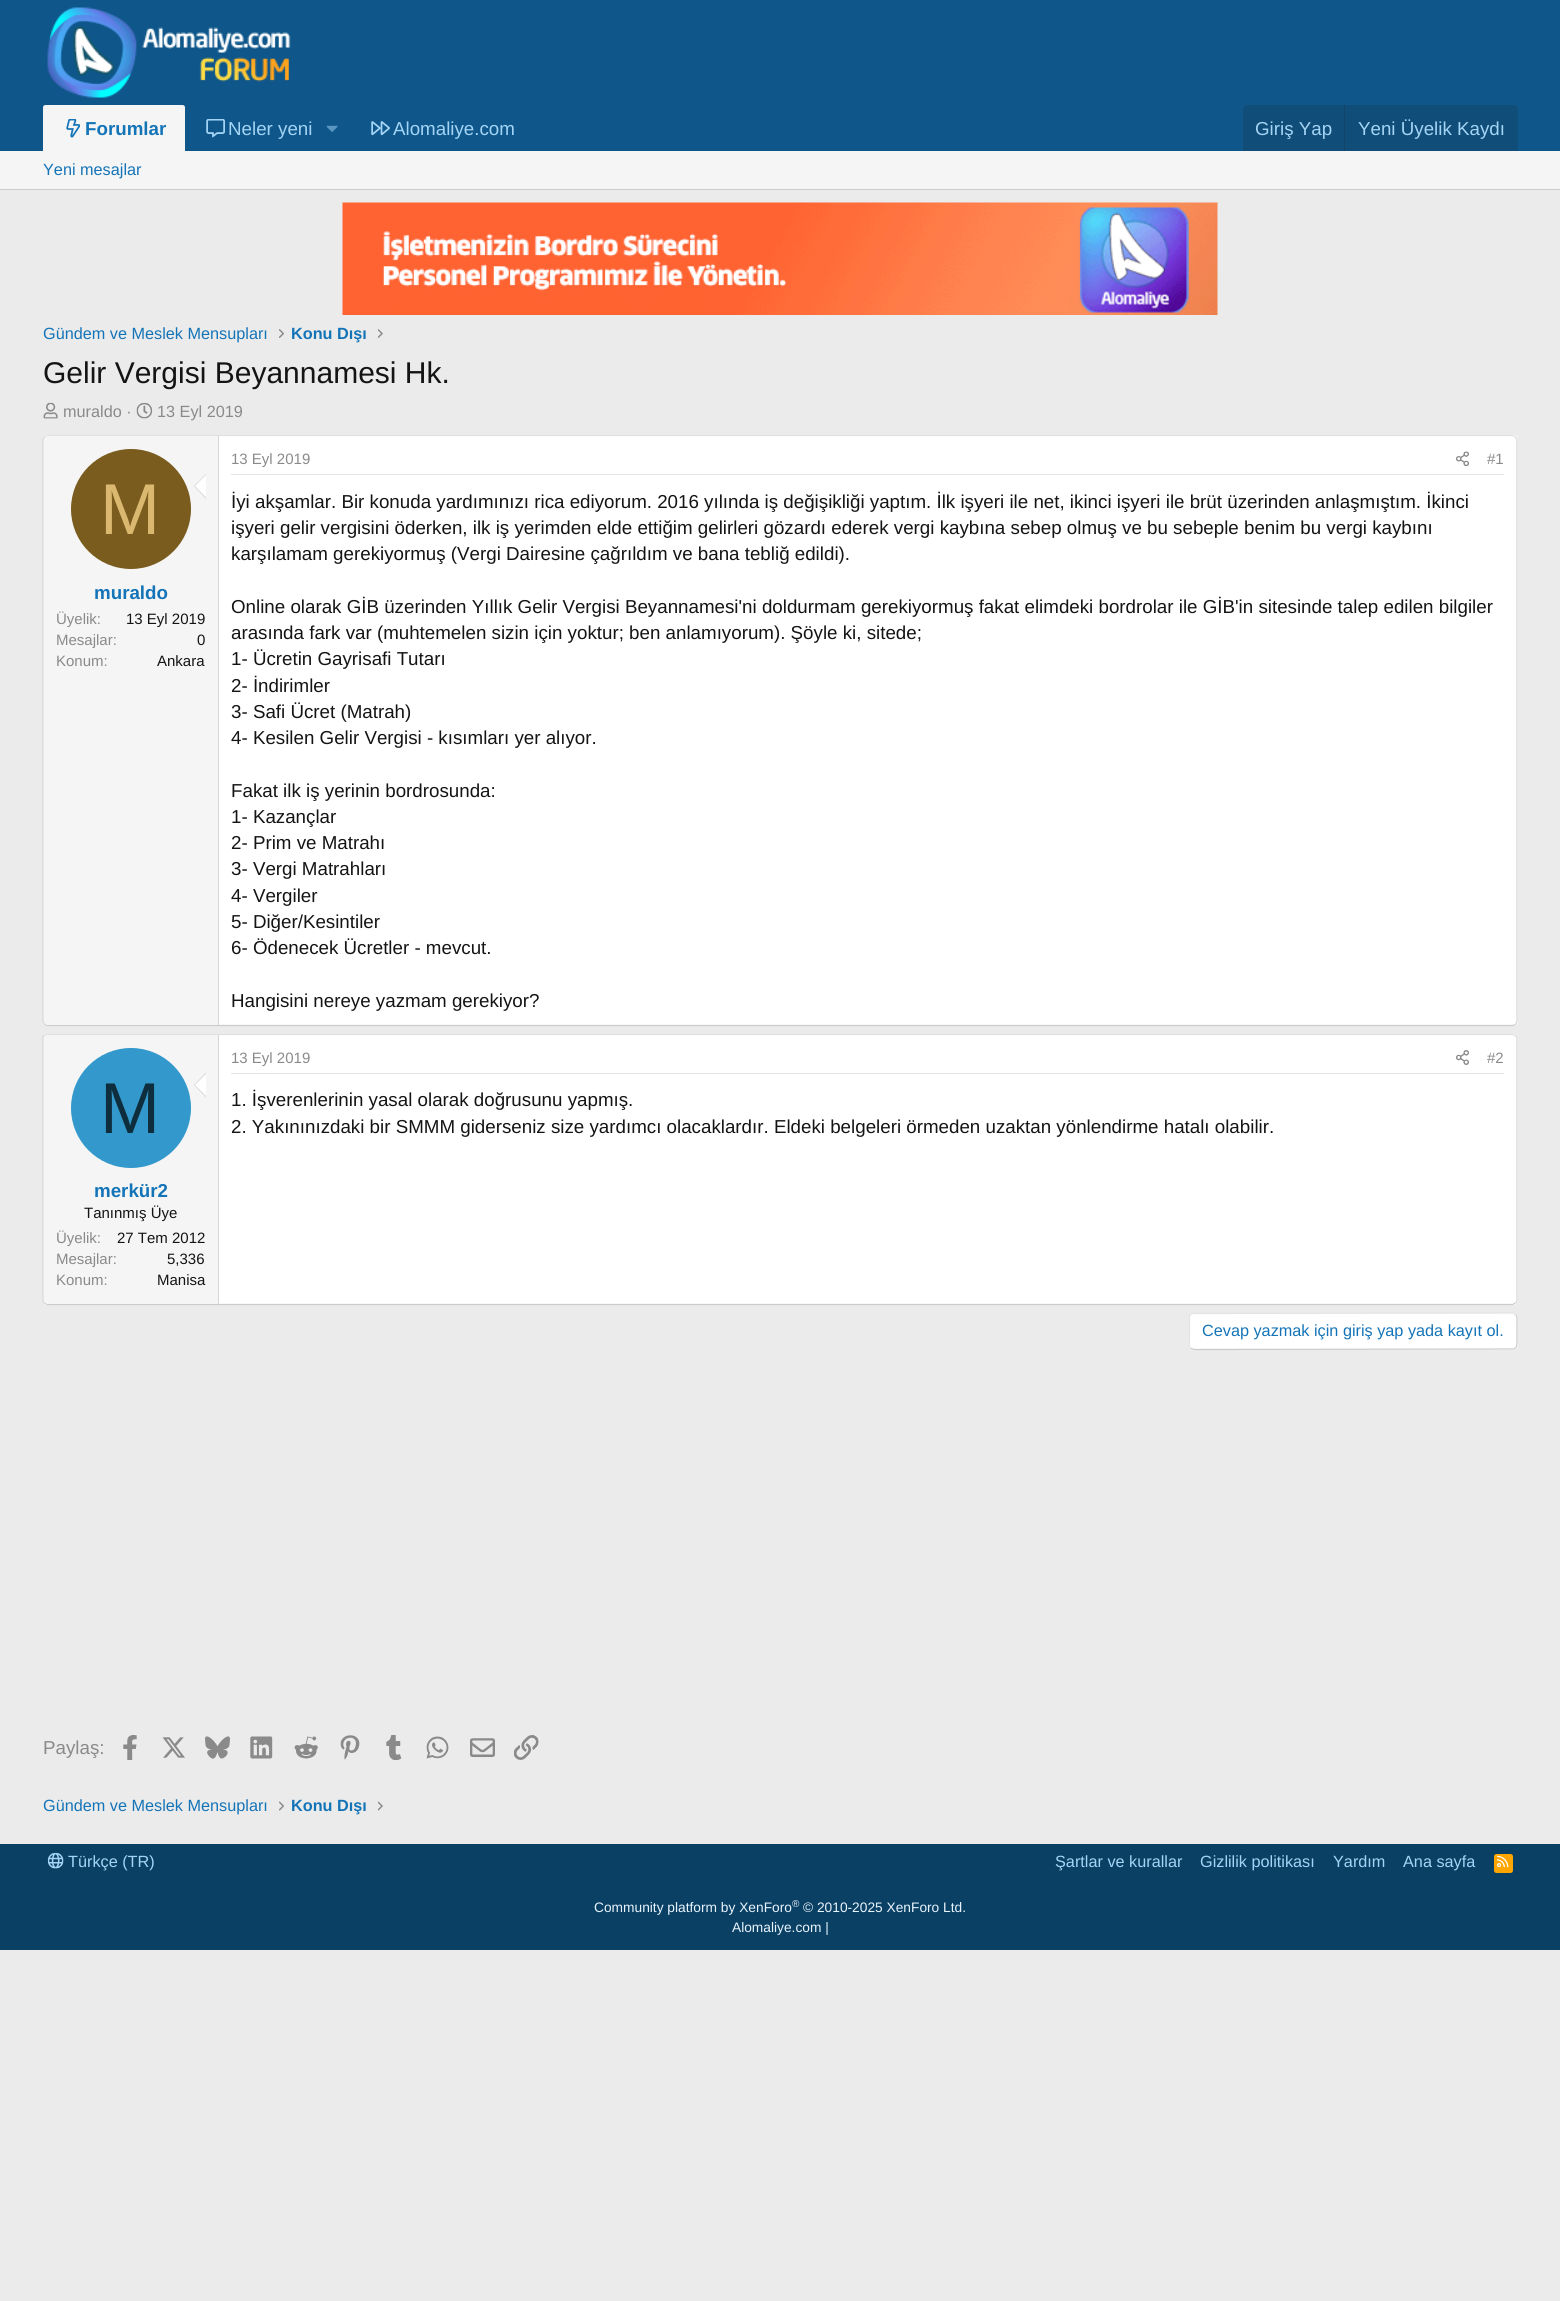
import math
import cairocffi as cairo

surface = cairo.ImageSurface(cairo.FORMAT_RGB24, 1560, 2301)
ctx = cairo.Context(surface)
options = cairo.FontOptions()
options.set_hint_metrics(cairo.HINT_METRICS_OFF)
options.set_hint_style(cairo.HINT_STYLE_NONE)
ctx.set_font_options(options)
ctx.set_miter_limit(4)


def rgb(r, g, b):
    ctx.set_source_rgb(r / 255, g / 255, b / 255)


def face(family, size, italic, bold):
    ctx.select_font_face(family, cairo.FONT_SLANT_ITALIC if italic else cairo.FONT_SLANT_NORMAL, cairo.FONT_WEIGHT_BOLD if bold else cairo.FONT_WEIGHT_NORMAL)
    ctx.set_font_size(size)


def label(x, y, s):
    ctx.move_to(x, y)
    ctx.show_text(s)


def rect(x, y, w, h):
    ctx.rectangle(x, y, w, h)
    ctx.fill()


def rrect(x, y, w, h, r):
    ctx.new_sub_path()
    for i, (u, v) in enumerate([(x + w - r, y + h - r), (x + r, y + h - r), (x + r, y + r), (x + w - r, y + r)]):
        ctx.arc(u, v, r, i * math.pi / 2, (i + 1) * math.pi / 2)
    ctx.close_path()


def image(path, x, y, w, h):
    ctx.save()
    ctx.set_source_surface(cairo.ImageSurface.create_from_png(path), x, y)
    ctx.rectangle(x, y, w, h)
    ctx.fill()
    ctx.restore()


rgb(235, 235, 235)
ctx.paint()
rgb(15, 87, 138)
rect(0, 0, 1560, 151)
image('image0.png', 47, 7, 244, 91)
rgb(245, 245, 245)
ctx.new_path()
ctx.move_to(45.5, 105)
ctx.line_to(182.5, 105)
ctx.curve_to(184, 105, 185, 106, 185, 107.5)
ctx.line_to(185, 151)
ctx.line_to(43, 151)
ctx.line_to(43, 107.5)
ctx.curve_to(43, 106, 44, 105, 45.5, 105)
ctx.close_path()
ctx.fill()
image('image1.png', 66, 119, 14, 19)
face('Liberation Sans', 18.75, 0, 1)
rgb(20, 116, 184)
label(85, 135, 'Forumlar')
image('image2.png', 206, 119, 19, 19)
face('Liberation Sans', 18.75, 0, 0)
rgb(163, 212, 245)
label(228, 135, 'Neler yeni')
image('image3.png', 326, 125, 12, 7)
image('image4.png', 371, 121, 19, 15)
label(393, 135, 'Alomaliye.com')
rgb(16, 77, 120)
ctx.new_path()
ctx.move_to(1248, 105)
ctx.line_to(1513, 105)
ctx.curve_to(1516, 105, 1518, 107, 1518, 110)
ctx.line_to(1518, 151)
ctx.line_to(1243, 151)
ctx.line_to(1243, 110)
ctx.curve_to(1243, 107, 1245, 105, 1248, 105)
ctx.close_path()
ctx.fill()
rgb(163, 212, 245)
label(1255, 135, 'Giriş Yap')
rgb(17, 68, 105)
rect(1344, 105, 1, 46)
rgb(163, 212, 245)
label(1358, 135, 'Yeni Üyelik Kaydı')
rgb(245, 245, 245)
rect(0, 151, 1560, 38)
rgb(204, 204, 204)
rect(0, 189, 1560, 1)
face('Liberation Sans', 16.25, 0, 0)
rgb(20, 116, 184)
label(43, 175, 'Yeni mesajlar')
image('image5.png', 342, 202, 876, 113)
label(43, 339, 'Gündem ve Meslek Mensupları')
image('image6.png', 279, 329, 5, 9)
face('Liberation Sans', 16.25, 0, 1)
label(291, 339, 'Konu Dışı')
image('image7.png', 378, 329, 5, 9)
face('Liberation Sans', 30, 0, 0)
rgb(20, 20, 20)
label(43, 383, 'Gelir Vergisi Beyannamesi Hk.')
image('image8.png', 43, 402, 15, 17)
face('Liberation Sans', 16.25, 0, 0)
rgb(138, 138, 138)
label(63, 417, 'muraldo ·')
image('image9.png', 136, 402, 17, 17)
label(157, 417, '13 Eyl 2019')
rgb(255, 255, 255)
rrect(43, 435, 1475, 591, 5)
ctx.fill()
ctx.new_path()
ctx.move_to(44.5, 437)
ctx.line_to(47.5, 435.5)
ctx.line_to(1512.5, 435.5)
ctx.line_to(1515.5, 437)
rgb(224, 224, 224)
ctx.set_line_width(1.2)
ctx.stroke()
ctx.new_path()
ctx.move_to(1515.5, 437)
ctx.line_to(1517, 440)
ctx.line_to(1517, 1021)
ctx.line_to(1515.5, 1024.5)
rgb(214, 214, 214)
ctx.stroke()
ctx.new_path()
ctx.move_to(1515.5, 1024.5)
ctx.line_to(1512.5, 1025.5)
ctx.line_to(47.5, 1025.5)
ctx.line_to(44.5, 1024.5)
rgb(204, 204, 204)
ctx.stroke()
ctx.new_path()
ctx.move_to(44.5, 1024.5)
ctx.line_to(43, 1021)
ctx.line_to(43, 440)
ctx.line_to(44.5, 437)
rgb(214, 214, 214)
ctx.stroke()
rgb(245, 245, 245)
ctx.new_path()
ctx.move_to(48, 436)
ctx.line_to(219, 436)
ctx.line_to(219, 1025)
ctx.line_to(48, 1025)
ctx.curve_to(46, 1025, 44, 1023, 44, 1021)
ctx.line_to(44, 440)
ctx.curve_to(44, 438, 46, 436, 48, 436)
ctx.close_path()
ctx.fill()
rgb(214, 214, 214)
rect(218, 436, 1, 589)
rgb(122, 92, 31)
ctx.arc(131, 509, 60, 0, 2 * math.pi)
ctx.fill()
face('Liberation Sans', 72, 0, 0)
rgb(219, 184, 112)
label(100, 534, 'M')
rgb(214, 214, 214)
ctx.new_path()
ctx.move_to(206, 474)
ctx.line_to(206, 499)
ctx.line_to(194, 486)
ctx.close_path()
ctx.fill()
rgb(255, 255, 255)
ctx.new_path()
ctx.move_to(206, 475)
ctx.line_to(206, 497.5)
ctx.line_to(195, 486)
ctx.close_path()
ctx.fill()
face('Liberation Sans', 18.75, 0, 1)
rgb(20, 116, 184)
label(94, 599, 'muraldo')
face('Liberation Sans', 15, 0, 0)
rgb(138, 138, 138)
label(56, 624, 'Üyelik:')
rgb(20, 20, 20)
label(126, 624, '13 Eyl 2019')
rgb(138, 138, 138)
label(56, 645, 'Mesajlar:')
rgb(20, 20, 20)
label(197, 645, '0')
rgb(138, 138, 138)
label(56, 666, 'Konum:')
rgb(20, 20, 20)
label(157, 666, 'Ankara')
rgb(229, 229, 229)
rect(231, 474, 1273, 1)
rgb(138, 138, 138)
label(231, 464, '13 Eyl 2019')
image('image10.png', 1456, 451, 13, 15)
label(1487, 464, '#1')
face('Liberation Sans', 18.75, 0, 0)
rgb(20, 20, 20)
label(231, 508, 'İyi akşamlar. Bir konuda yardımınızı rica ediyorum. 2016 yılında iş değişikliği yaptım. İlk işyeri ile net, ikinci işyeri ile brüt üzerinden anlaşmıştım. İkinci')
label(231, 534, 'işyeri gelir vergisini öderken, ilk iş yerimden elde ettiğim gelirleri gözardı ederek vergi kaybına sebep olmuş ve bu sebeple benim bu vergi kaybını')
label(231, 560, 'karşılamam gerekiyormuş (Vergi Dairesine çağrıldım ve bana tebliğ edildi).')
label(231, 613, 'Online olarak GİB üzerinden Yıllık Gelir Vergisi Beyannamesi\'ni doldurmam gerekiyormuş fakat elimdeki bordrolar ile GİB\'in sitesinde talep edilen bilgiler')
label(231, 639, 'arasında fark var (muhtemelen sizin için yoktur; ben anlamıyorum). Şöyle ki, sitede;')
label(231, 665, '1- Ücretin Gayrisafi Tutarı')
label(231, 692, '2- İndirimler')
label(231, 718, '3- Safi Ücret (Matrah)')
label(231, 744, '4- Kesilen Gelir Vergisi - kısımları yer alıyor.')
label(231, 797, 'Fakat ilk iş yerinin bordrosunda:')
label(231, 823, '1- Kazançlar')
label(231, 849, '2- Prim ve Matrahı')
label(231, 875, '3- Vergi Matrahları')
label(231, 902, '4- Vergiler')
label(231, 928, '5- Diğer/Kesintiler')
label(231, 954, '6- Ödenecek Ücretler - mevcut.')
label(231, 1007, 'Hangisini nereye yazmam gerekiyor?')
rgb(255, 255, 255)
rrect(43, 1034, 1475, 271, 5)
ctx.fill()
ctx.new_path()
ctx.move_to(44.5, 1035.5)
ctx.line_to(47.5, 1034.5)
ctx.line_to(1512.5, 1034.5)
ctx.line_to(1515.5, 1035.5)
rgb(224, 224, 224)
ctx.stroke()
ctx.new_path()
ctx.move_to(1515.5, 1035.5)
ctx.curve_to(1516.5, 1036.5, 1517, 1037.5, 1517, 1039)
ctx.line_to(1517, 1300)
ctx.curve_to(1517, 1301, 1516.5, 1302.5, 1515.5, 1303)
rgb(214, 214, 214)
ctx.stroke()
ctx.new_path()
ctx.move_to(1515.5, 1303)
ctx.line_to(1512.5, 1304.5)
ctx.line_to(47.5, 1304.5)
ctx.line_to(44.5, 1303)
rgb(204, 204, 204)
ctx.stroke()
ctx.new_path()
ctx.move_to(44.5, 1303)
ctx.curve_to(43.5, 1302.5, 43, 1301, 43, 1300)
ctx.line_to(43, 1039)
ctx.curve_to(43, 1037.5, 43.5, 1036.5, 44.5, 1035.5)
rgb(214, 214, 214)
ctx.stroke()
rgb(245, 245, 245)
ctx.new_path()
ctx.move_to(48, 1035)
ctx.line_to(219, 1035)
ctx.line_to(219, 1304)
ctx.line_to(48, 1304)
ctx.curve_to(46, 1304, 44, 1302, 44, 1300)
ctx.line_to(44, 1039)
ctx.curve_to(44, 1037, 46, 1035, 48, 1035)
ctx.close_path()
ctx.fill()
rgb(214, 214, 214)
rect(218, 1035, 1, 269)
rgb(51, 153, 204)
ctx.arc(131, 1108, 60, 0, 2 * math.pi)
ctx.fill()
face('Liberation Sans', 72, 0, 0)
rgb(15, 46, 61)
label(100, 1133, 'M')
rgb(214, 214, 214)
ctx.new_path()
ctx.move_to(206, 1072.5)
ctx.line_to(206, 1097.5)
ctx.line_to(194, 1085)
ctx.close_path()
ctx.fill()
rgb(255, 255, 255)
ctx.new_path()
ctx.move_to(206, 1074)
ctx.line_to(206, 1096)
ctx.line_to(195, 1085)
ctx.close_path()
ctx.fill()
face('Liberation Sans', 18.75, 0, 1)
rgb(20, 116, 184)
label(94, 1197, 'merkür2')
face('Liberation Sans', 15, 0, 0)
rgb(20, 20, 20)
label(84, 1218, 'Tanınmış Üye')
rgb(138, 138, 138)
label(56, 1243, 'Üyelik:')
rgb(20, 20, 20)
label(117, 1243, '27 Tem 2012')
rgb(138, 138, 138)
label(56, 1264, 'Mesajlar:')
rgb(20, 20, 20)
label(167, 1264, '5,336')
rgb(138, 138, 138)
label(56, 1285, 'Konum:')
rgb(20, 20, 20)
label(157, 1285, 'Manisa')
rgb(229, 229, 229)
rect(231, 1073, 1273, 1)
rgb(138, 138, 138)
label(231, 1063, '13 Eyl 2019')
image('image11.png', 1456, 1050, 13, 15)
label(1487, 1063, '#2')
face('Liberation Sans', 18.75, 0, 0)
rgb(20, 20, 20)
label(231, 1106, '1. İşverenlerinin yasal olarak doğrusunu yapmış.')
label(231, 1133, '2. Yakınınızdaki bir SMMM giderseniz size yardımcı olacaklardır. Eldeki belgeleri örmeden uzaktan yönlendirme hatalı olabilir.')
rgb(255, 255, 255)
rrect(1189, 1313, 329, 37, 5)
ctx.fill()
ctx.new_path()
ctx.move_to(1515.5, 1314.5)
ctx.curve_to(1517.5, 1316.5, 1517, 1319.5, 1517, 1322)
ctx.line_to(1517, 1340.5)
ctx.curve_to(1517, 1343.5, 1517.5, 1347.5, 1514, 1349)
ctx.line_to(1194, 1349.5)
ctx.line_to(1190.5, 1348)
rgb(201, 201, 201)
ctx.stroke()
ctx.new_path()
ctx.move_to(1190.5, 1348)
ctx.curve_to(1188.5, 1346, 1189.5, 1343, 1189.5, 1340.5)
ctx.line_to(1189.5, 1322)
ctx.curve_to(1189.5, 1319, 1188.5, 1315, 1192, 1313.5)
ctx.line_to(1512.5, 1313)
ctx.line_to(1515.5, 1314.5)
rgb(227, 227, 227)
ctx.stroke()
face('Liberation Sans', 16.25, 0, 0)
rgb(20, 116, 184)
label(1202, 1336, 'Cevap yazmak için giriş yap yada kayıt ol.')
face('Liberation Sans', 18.75, 0, 0)
rgb(138, 138, 138)
label(43, 1754, 'Paylaş:')
image('image12.png', 123, 1735, 14, 25)
image('image13.png', 162, 1737, 23, 21)
image('image14.png', 205, 1736, 25, 23)
image('image15.png', 250, 1736, 23, 23)
image('image16.png', 294, 1736, 24, 23)
image('image17.png', 340, 1735, 20, 25)
image('image18.png', 386, 1735, 16, 25)
image('image19.png', 426, 1736, 23, 23)
image('image20.png', 470, 1738, 25, 19)
image('image21.png', 514, 1735, 25, 25)
face('Liberation Sans', 16.25, 0, 0)
rgb(20, 116, 184)
label(43, 1811, 'Gündem ve Meslek Mensupları')
image('image22.png', 279, 1801, 5, 10)
face('Liberation Sans', 16.25, 0, 1)
label(291, 1811, 'Konu Dışı')
image('image23.png', 378, 1801, 5, 10)
rgb(11, 64, 101)
rect(0, 1844, 1560, 106)
image('image24.png', 47, 1852, 17, 17)
face('Liberation Sans', 16.25, 0, 0)
rgb(163, 212, 245)
label(68, 1867, 'Türkçe (TR)')
label(1055, 1867, 'Şartlar ve kurallar')
label(1200, 1867, 'Gizlilik politikası')
label(1333, 1867, 'Yardım')
label(1403, 1867, 'Ana sayfa')
rgb(255, 165, 0)
rrect(1494, 1854, 19, 19, 2.5)
ctx.fill()
image('image25.png', 1497, 1855, 12, 13)
face('Liberation Sans', 13.75, 0, 0)
rgb(232, 244, 252)
label(594, 1912, 'Community platform by XenForo')
face('Liberation Sans', 10, 0, 0)
label(792, 1907, '®')
face('Liberation Sans', 13.75, 0, 0)
label(803, 1912, '© 2010-2025 XenForo Ltd.')
label(732, 1932, 'Alomaliye.com |')
surface.write_to_png('render.png')
